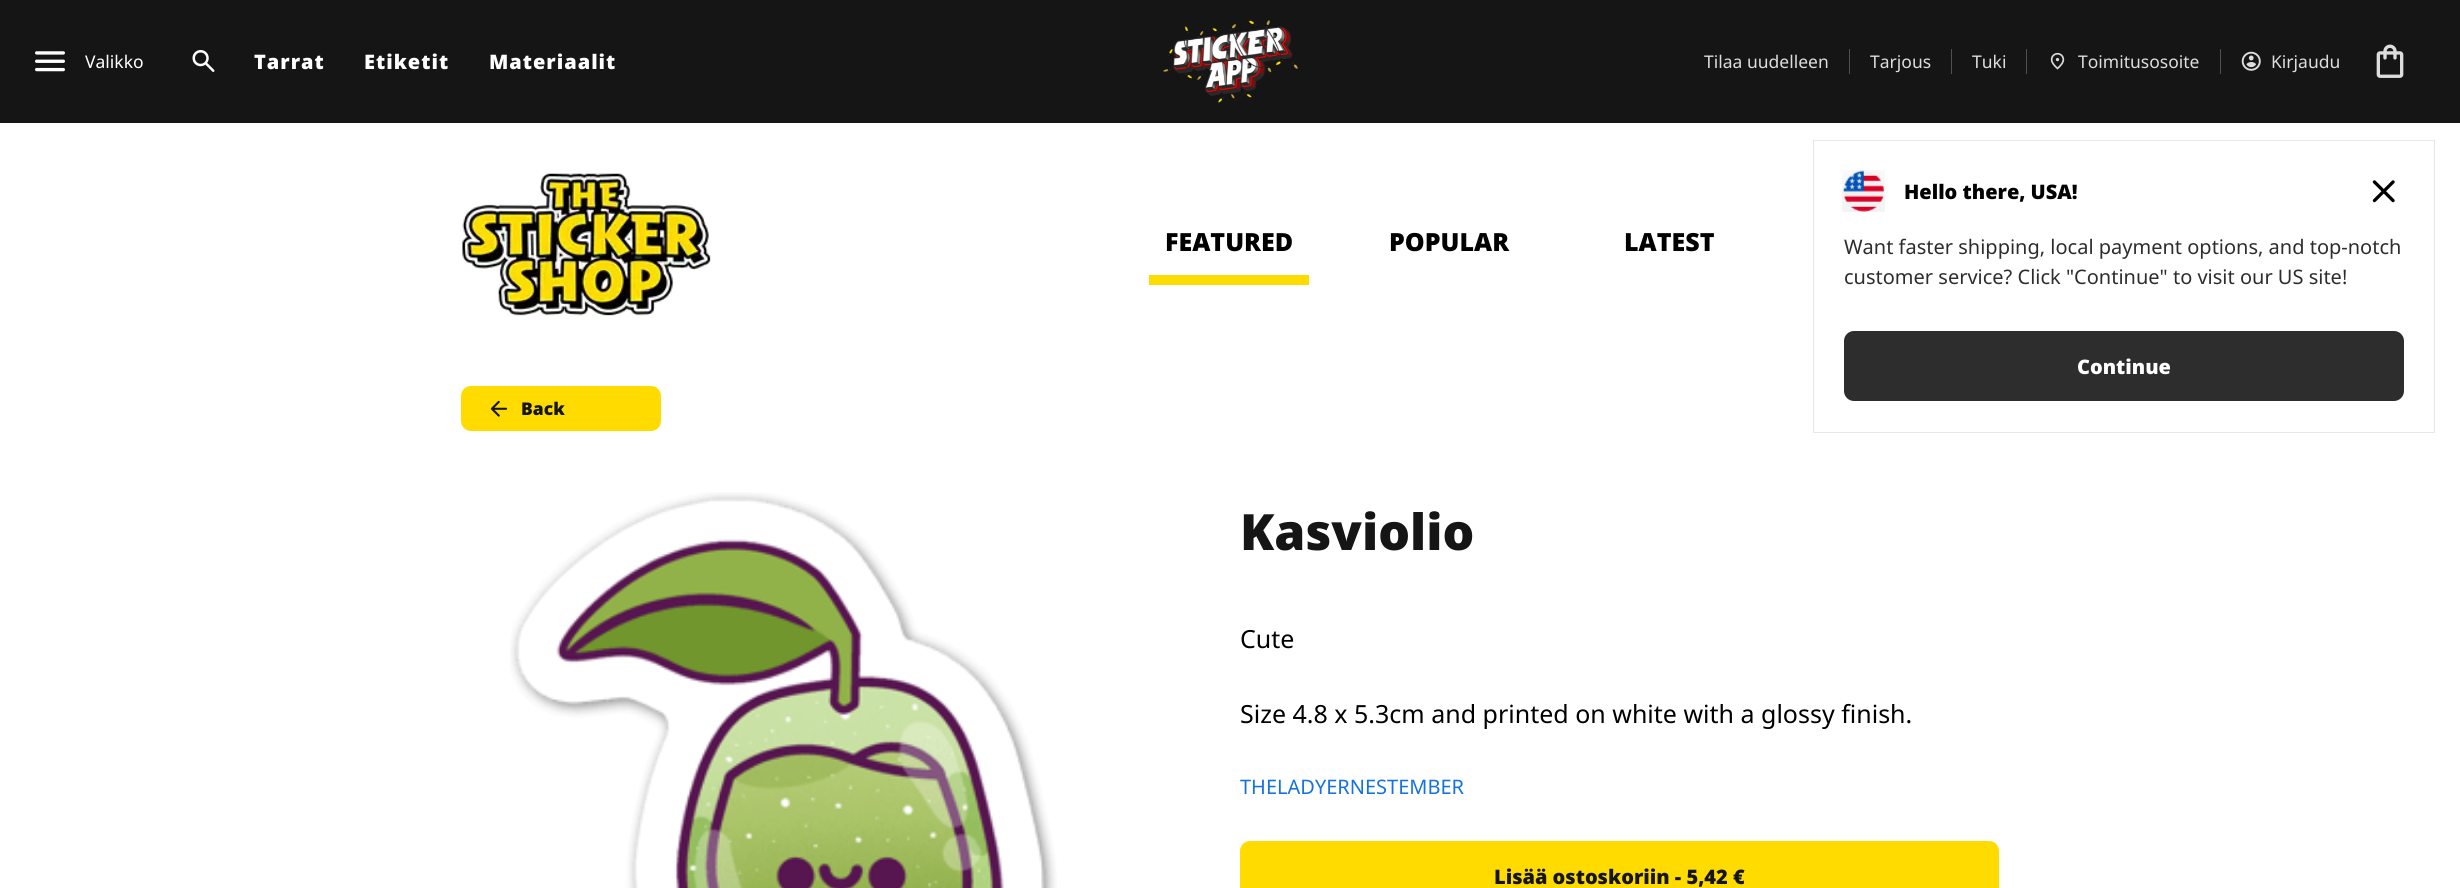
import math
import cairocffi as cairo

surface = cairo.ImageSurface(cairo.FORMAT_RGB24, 2460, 888)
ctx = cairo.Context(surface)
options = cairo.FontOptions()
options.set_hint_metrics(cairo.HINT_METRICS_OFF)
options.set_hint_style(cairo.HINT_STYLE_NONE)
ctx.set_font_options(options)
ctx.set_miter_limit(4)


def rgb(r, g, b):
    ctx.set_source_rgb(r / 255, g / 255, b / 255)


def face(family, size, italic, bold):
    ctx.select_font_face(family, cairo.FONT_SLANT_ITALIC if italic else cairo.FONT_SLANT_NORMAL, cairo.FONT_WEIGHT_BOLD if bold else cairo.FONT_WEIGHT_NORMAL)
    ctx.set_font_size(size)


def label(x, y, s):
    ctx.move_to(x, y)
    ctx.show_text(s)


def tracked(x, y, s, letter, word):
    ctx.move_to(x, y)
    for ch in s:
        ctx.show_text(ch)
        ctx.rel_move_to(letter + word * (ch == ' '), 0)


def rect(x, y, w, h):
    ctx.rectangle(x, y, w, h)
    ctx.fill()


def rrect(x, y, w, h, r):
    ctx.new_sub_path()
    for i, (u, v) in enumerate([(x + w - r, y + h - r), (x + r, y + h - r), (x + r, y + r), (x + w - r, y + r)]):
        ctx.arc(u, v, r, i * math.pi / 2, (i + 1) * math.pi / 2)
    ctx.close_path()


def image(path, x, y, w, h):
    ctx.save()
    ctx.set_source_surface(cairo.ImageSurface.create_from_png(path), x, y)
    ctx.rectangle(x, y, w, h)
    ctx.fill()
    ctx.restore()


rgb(255, 255, 255)
ctx.paint()
rgb(21, 21, 21)
rect(0, 0, 2460, 123)
image('image0.png', 35, 51, 30, 21)
face('Noto Sans', 17.5, 0, 0)
rgb(255, 255, 255)
label(85, 68, 'Valikko')
image('image1.png', 192, 50, 23, 22)
face('Noto Sans Black', 20, 0, 0)
tracked(254, 69, 'Tarrat', 1, 0)
tracked(364, 69, 'Etiketit', 1, 0)
tracked(489, 69, 'Materiaalit', 1, 0)
image('image2.png', 1159, 20, 141, 83)
rgb(80, 80, 80)
rect(1849, 49, 1, 25)
face('Noto Sans', 17.5, 0, 0)
rgb(221, 221, 221)
label(1704, 68, 'Tilaa uudelleen')
rgb(80, 80, 80)
rect(1951, 49, 1, 25)
rgb(221, 221, 221)
label(1870, 68, 'Tarjous')
rgb(80, 80, 80)
rect(2026, 49, 1, 25)
rgb(221, 221, 221)
label(1972, 68, 'Tuki')
rgb(80, 80, 80)
rect(2220, 49, 1, 25)
image('image3.png', 2050, 52, 15, 18)
rgb(221, 221, 221)
label(2078, 68, 'Toimitusosoite')
image('image4.png', 2241, 51, 20, 20)
label(2271, 68, 'Kirjaudu')
image('image5.png', 2376, 44, 28, 34)
image('image6.png', 462, 173, 249, 143)
face('Noto Sans Black', 25, 0, 0)
rgb(0, 0, 0)
label(1165, 251, 'FEATURED')
rgb(255, 219, 0)
rect(1149, 275, 160, 10)
rgb(0, 0, 0)
label(1389, 251, 'POPULAR')
label(1624, 251, 'LATEST')
ctx.rectangle(1813.5, 140.5, 621, 292)
rgb(229, 231, 235)
ctx.set_line_width(1)
ctx.stroke()
image('image7.png', 1842, 170, 43, 42)
face('Noto Sans Black', 20, 0, 0)
rgb(0, 0, 0)
label(1904, 199, 'Hello there, USA!')
image('image8.png', 2372, 180, 23, 23)
face('Noto Sans', 20, 0, 0)
rgb(45, 45, 45)
label(1844, 254, 'Want faster shipping, local payment options, and top-notch')
label(1844, 284, 'customer service? Click "Continue" to visit our US site!')
rrect(1844, 331, 560, 70, 10)
ctx.fill()
face('Noto Sans Black', 20, 0, 0)
rgb(255, 255, 255)
label(2077, 374, 'Continue')
rgb(255, 219, 0)
rrect(461, 386, 200, 45, 10)
ctx.fill()
image('image9.png', 490, 400, 18, 17)
face('Noto Sans Black', 17.5, 0, 0)
rgb(21, 21, 21)
label(521, 415, 'Back')
image('image10.png', 510, 492, 547, 396)
face('Noto Sans Black', 50, 0, 0)
label(1240, 550, 'Kasviolio')
face('Noto Sans', 25, 0, 0)
rgb(0, 0, 0)
label(1240, 648, 'Cute')
label(1240, 723, 'Size 4.8 x 5.3cm and printed on white with a glossy finish.')
face('Noto Sans', 20, 0, 0)
rgb(21, 115, 222)
label(1240, 794, 'THELADYERNESTEMBER')
rgb(255, 219, 0)
rrect(1240, 841, 759, 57, 10)
ctx.fill()
face('Noto Sans Black', 20, 0, 0)
rgb(21, 21, 21)
label(1494, 884, 'Lisää ostoskoriin - 5,42 €')
surface.write_to_png('render.png')
